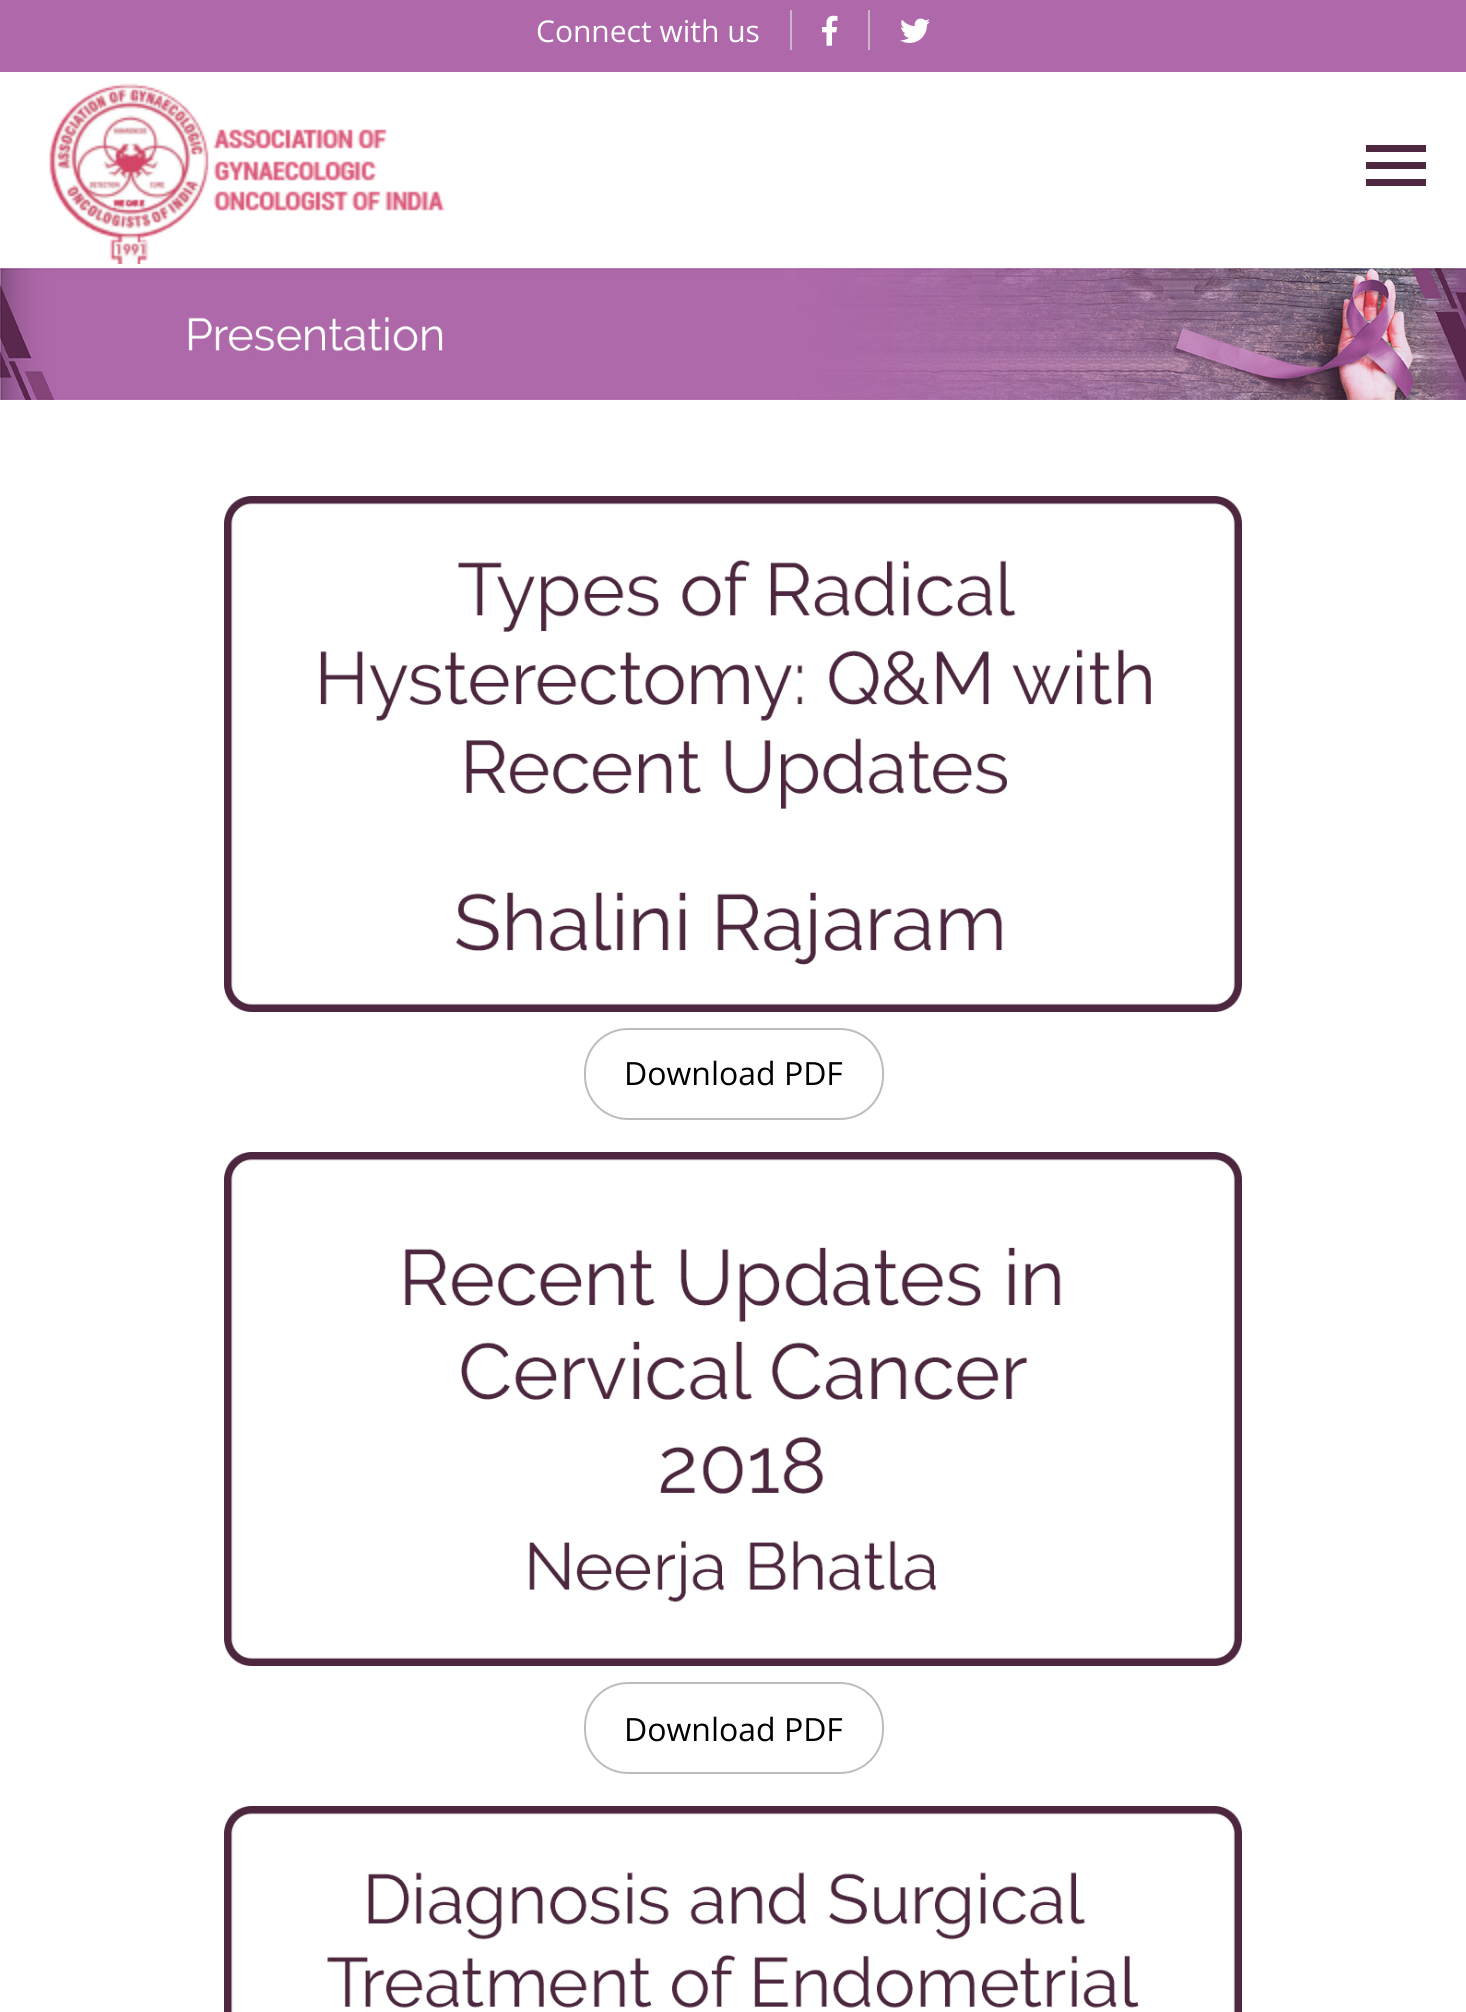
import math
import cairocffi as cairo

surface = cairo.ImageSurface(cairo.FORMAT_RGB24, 1466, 2012)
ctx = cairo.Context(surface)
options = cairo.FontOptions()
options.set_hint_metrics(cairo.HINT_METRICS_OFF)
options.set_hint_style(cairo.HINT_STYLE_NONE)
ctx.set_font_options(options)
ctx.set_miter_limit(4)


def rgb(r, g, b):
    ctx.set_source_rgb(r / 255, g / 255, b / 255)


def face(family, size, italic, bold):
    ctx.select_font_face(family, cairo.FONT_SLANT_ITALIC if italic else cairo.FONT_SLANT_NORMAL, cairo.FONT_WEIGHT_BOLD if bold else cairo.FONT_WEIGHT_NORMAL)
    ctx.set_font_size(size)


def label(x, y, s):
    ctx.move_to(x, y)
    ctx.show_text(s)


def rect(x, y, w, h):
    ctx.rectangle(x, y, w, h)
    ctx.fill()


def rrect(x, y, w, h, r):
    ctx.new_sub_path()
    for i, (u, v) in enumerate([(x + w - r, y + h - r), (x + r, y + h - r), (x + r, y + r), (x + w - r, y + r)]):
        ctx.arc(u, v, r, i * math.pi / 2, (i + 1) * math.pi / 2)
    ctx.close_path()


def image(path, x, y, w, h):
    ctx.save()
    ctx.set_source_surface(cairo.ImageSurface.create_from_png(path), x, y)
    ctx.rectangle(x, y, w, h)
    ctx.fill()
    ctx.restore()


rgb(255, 255, 255)
ctx.paint()
rgb(175, 105, 171)
rect(0, 0, 1466, 72)
face('Open Sans', 30, 0, 0)
rgb(255, 255, 255)
label(536, 42, 'Connect with us')
rgb(203, 182, 196)
rect(790, 10, 2, 40)
rect(868, 10, 2, 40)
image('image0.png', 822, 15, 16, 31)
image('image1.png', 900, 18, 30, 25)
image('image2.png', 49, 83, 396, 181)
rgb(77, 39, 63)
ctx.new_path()
ctx.move_to(1366, 186)
ctx.line_to(1366, 179)
ctx.line_to(1426, 179)
ctx.line_to(1426, 186)
ctx.close_path()
ctx.move_to(1366, 169)
ctx.line_to(1366, 162)
ctx.line_to(1426, 162)
ctx.line_to(1426, 169)
ctx.close_path()
ctx.move_to(1366, 145)
ctx.line_to(1426, 145)
ctx.line_to(1426, 152)
ctx.line_to(1366, 152)
ctx.close_path()
ctx.fill()
image('image3.png', 0, 268, 1466, 132)
image('image4.png', 224, 496, 1018, 516)
rrect(585, 1029, 298, 90, 43)
rgb(189, 189, 189)
ctx.stroke()
face('Open Sans', 32, 0, 0)
rgb(0, 0, 0)
label(624, 1085, 'Download PDF')
image('image5.png', 224, 1152, 1018, 514)
rrect(585, 1683, 298, 90, 43)
rgb(189, 189, 189)
ctx.stroke()
rgb(0, 0, 0)
label(624, 1741, 'Download PDF')
image('image6.png', 224, 1806, 1018, 206)
surface.write_to_png('render.png')
